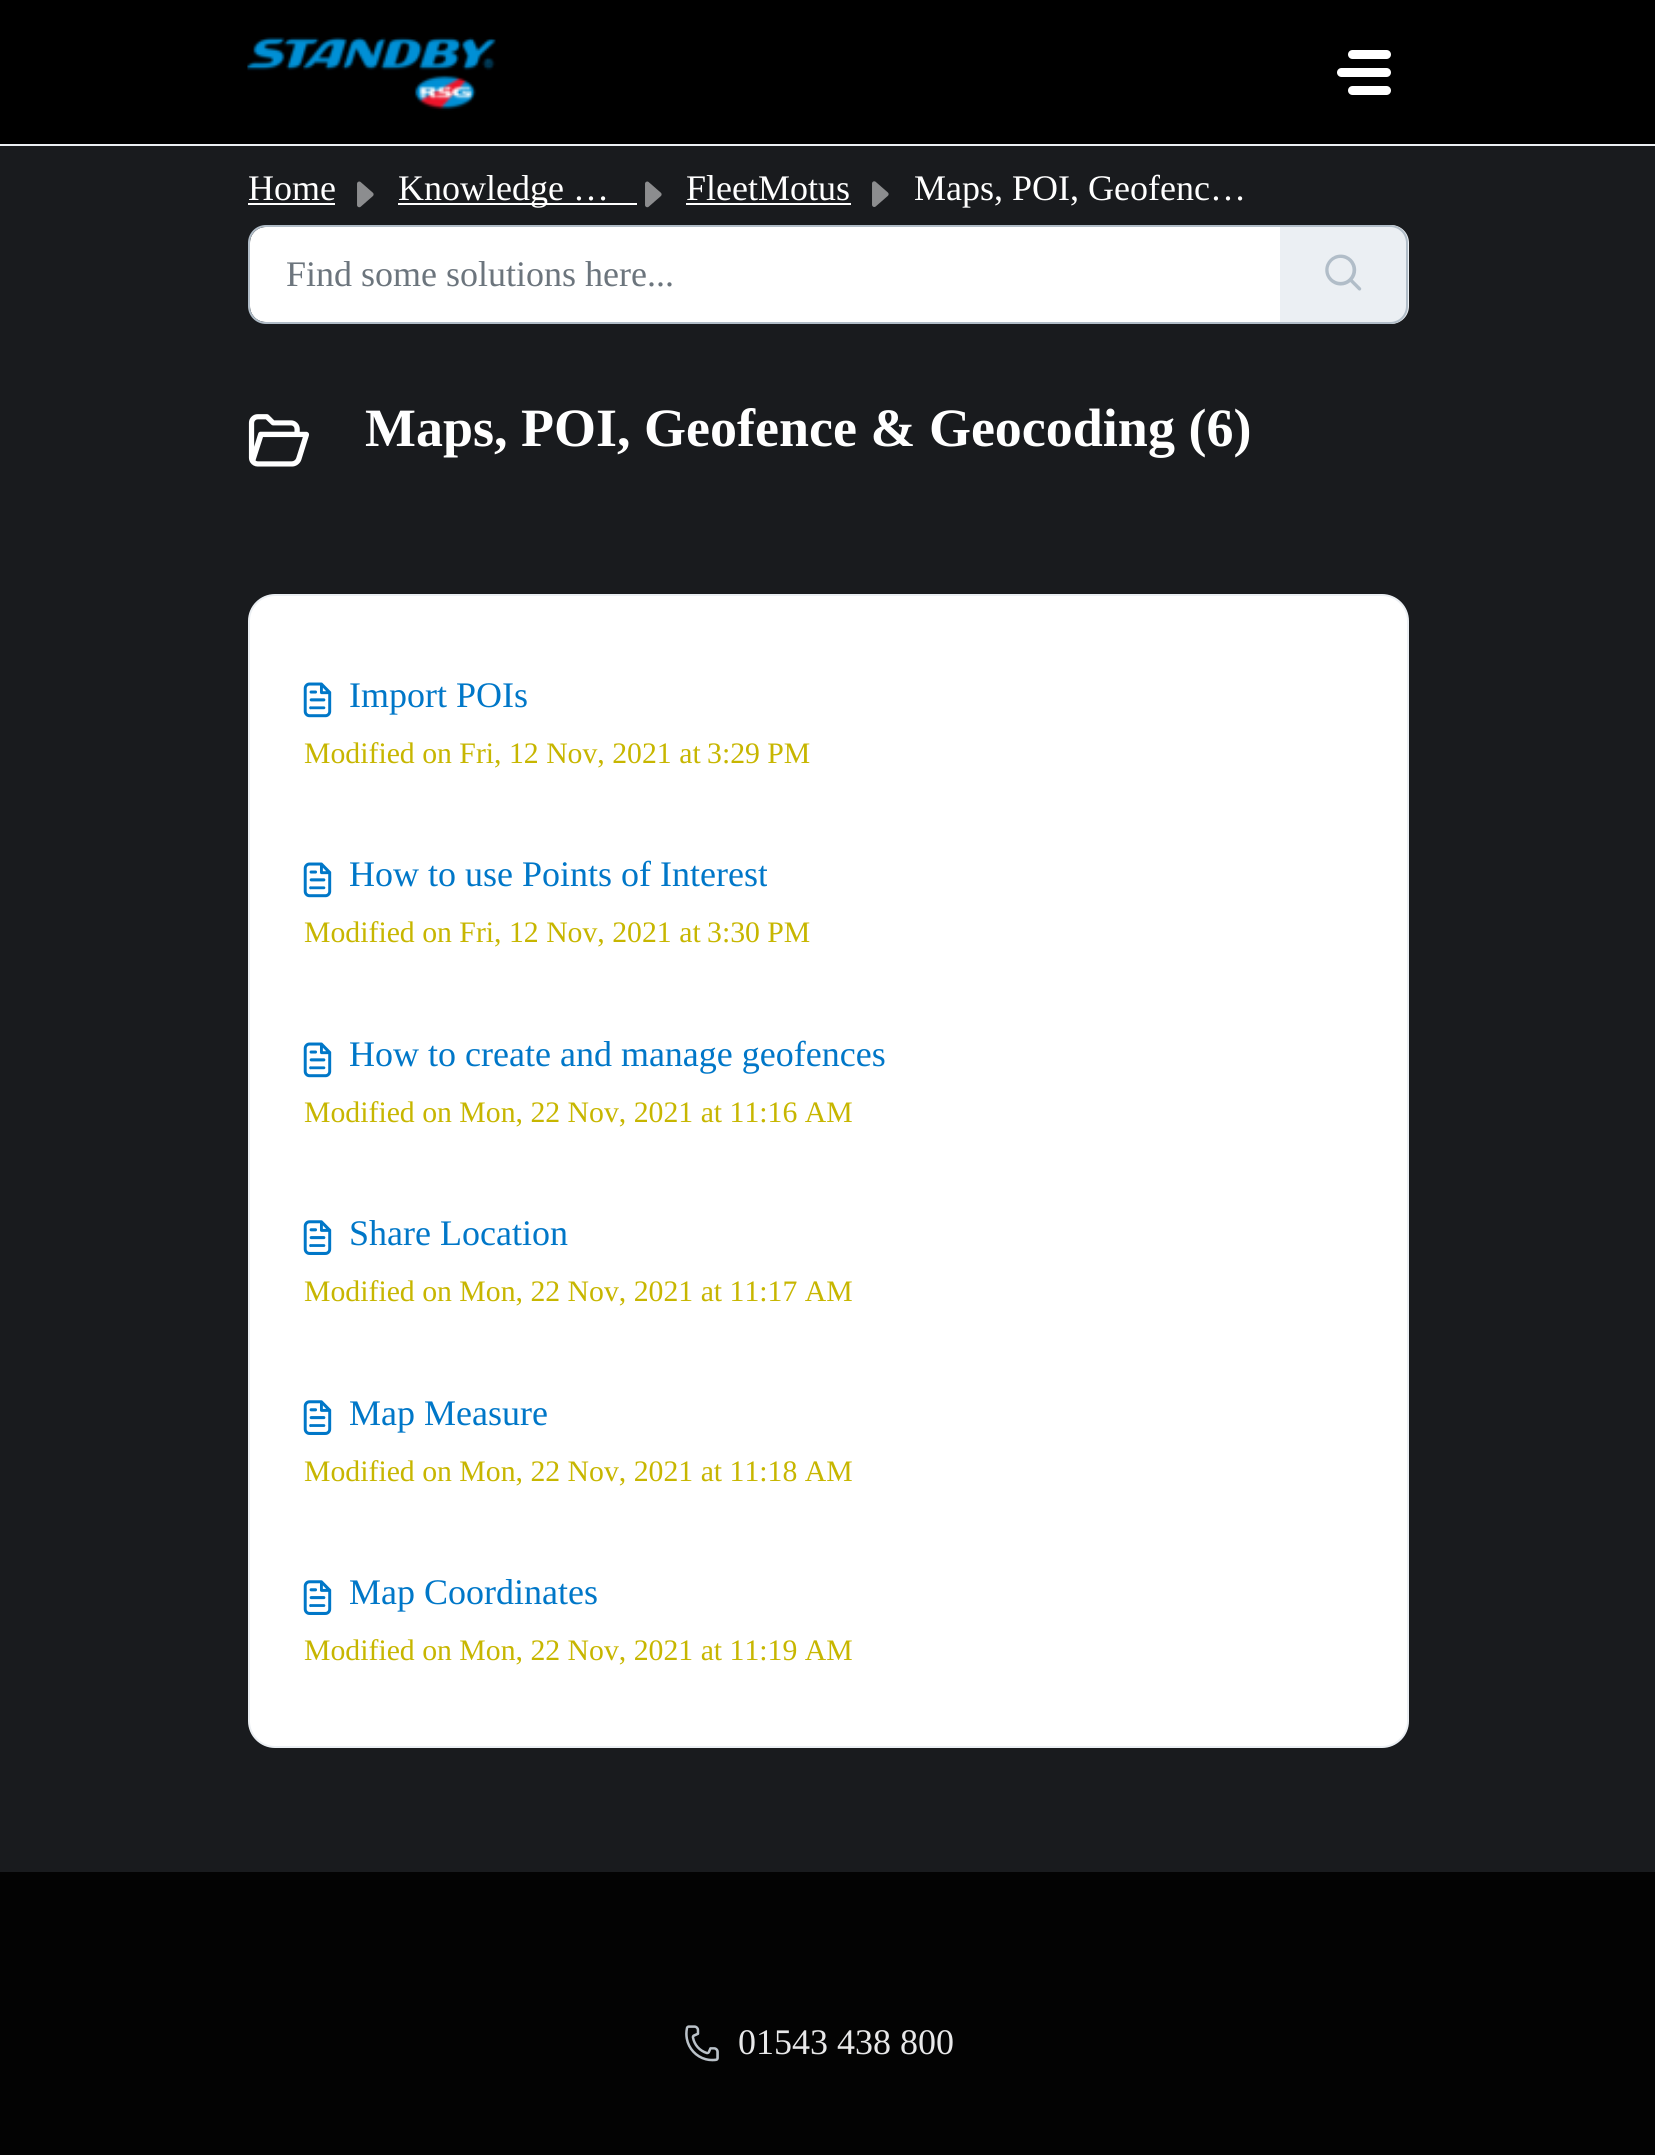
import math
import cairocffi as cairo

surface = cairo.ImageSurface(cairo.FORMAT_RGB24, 1655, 2155)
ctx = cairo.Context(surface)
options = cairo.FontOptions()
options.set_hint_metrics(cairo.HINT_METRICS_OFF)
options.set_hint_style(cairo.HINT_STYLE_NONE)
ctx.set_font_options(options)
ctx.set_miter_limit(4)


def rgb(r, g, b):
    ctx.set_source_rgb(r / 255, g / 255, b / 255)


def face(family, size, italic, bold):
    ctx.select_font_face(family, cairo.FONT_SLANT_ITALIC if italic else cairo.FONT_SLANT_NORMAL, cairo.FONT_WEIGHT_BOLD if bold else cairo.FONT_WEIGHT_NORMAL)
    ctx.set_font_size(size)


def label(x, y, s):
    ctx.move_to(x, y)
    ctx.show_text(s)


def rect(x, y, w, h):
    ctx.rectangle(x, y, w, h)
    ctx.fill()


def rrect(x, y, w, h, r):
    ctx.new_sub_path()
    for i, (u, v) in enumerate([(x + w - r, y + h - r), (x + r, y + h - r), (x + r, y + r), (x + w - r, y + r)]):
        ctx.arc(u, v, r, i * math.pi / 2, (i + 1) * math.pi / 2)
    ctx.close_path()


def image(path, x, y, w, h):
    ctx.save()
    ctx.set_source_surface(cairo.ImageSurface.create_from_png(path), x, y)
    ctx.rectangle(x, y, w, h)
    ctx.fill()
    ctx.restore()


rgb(25, 27, 30)
ctx.paint()
rgb(0, 0, 0)
rect(0, 0, 1655, 144)
rgb(235, 239, 243)
rect(0, 144, 1655, 2)
image('image0.png', 247, 37, 249, 74)
rgb(255, 255, 255)
rrect(1348, 50, 43, 9, 4.5)
ctx.fill()
rrect(1337, 68, 54, 9, 4.5)
ctx.fill()
rrect(1348, 86, 43, 9, 4.5)
ctx.fill()
face('Liberation Serif', 36, 0, 0)
label(248, 200, 'Home')
rect(248, 203, 87, 2)
image('image1.png', 357, 181, 17, 27)
rect(398, 203, 239, 2)
label(398, 200, 'Knowledge …')
image('image1.png', 645, 181, 17, 27)
label(686, 200, 'FleetMotus')
rect(686, 203, 165, 2)
image('image2.png', 872, 181, 17, 26)
label(914, 200, 'Maps, POI, Geofenc…')
ctx.new_path()
ctx.move_to(266, 227)
ctx.line_to(1280, 227)
ctx.line_to(1280, 322)
ctx.line_to(266, 322)
ctx.curve_to(257, 322, 250, 315, 250, 306)
ctx.line_to(250, 243)
ctx.curve_to(250, 234, 257, 227, 266, 227)
ctx.close_path()
ctx.fill()
ctx.new_path()
ctx.move_to(266, 226)
ctx.line_to(1282, 226)
ctx.line_to(1282, 323)
ctx.line_to(266, 323)
ctx.curve_to(256.5, 323, 249, 315.5, 249, 306)
ctx.line_to(249, 243)
ctx.curve_to(249, 233.5, 256.5, 226, 266, 226)
ctx.close_path()
rgb(177, 189, 200)
ctx.stroke()
rgb(108, 117, 125)
label(286, 286, 'Find some solutions here...')
rgb(235, 239, 243)
ctx.new_path()
ctx.move_to(1280, 225)
ctx.line_to(1391, 225)
ctx.curve_to(1401, 225, 1409, 233, 1409, 243)
ctx.line_to(1409, 306)
ctx.curve_to(1409, 316, 1401, 324, 1391, 324)
ctx.line_to(1280, 324)
ctx.close_path()
ctx.fill()
rgb(177, 189, 200)
ctx.set_fill_rule(cairo.FILL_RULE_EVEN_ODD)
ctx.new_path()
ctx.move_to(1280, 225)
ctx.line_to(1390, 225)
ctx.curve_to(1400, 225, 1408, 233, 1408, 243)
ctx.line_to(1408, 306)
ctx.curve_to(1408, 316, 1400, 324, 1390, 324)
ctx.line_to(1280, 324)
ctx.close_path()
ctx.move_to(1280, 227)
ctx.line_to(1390, 227)
ctx.curve_to(1399, 227, 1406, 234, 1406, 243)
ctx.line_to(1406, 306)
ctx.curve_to(1406, 315, 1399, 322, 1390, 322)
ctx.line_to(1280, 322)
ctx.close_path()
ctx.fill()
image('image3.png', 1325, 254, 37, 37)
image('image4.png', 248, 414, 61, 53)
face('Liberation Serif', 54, 0, 1)
rgb(255, 255, 255)
label(365, 446, 'Maps, POI, Geofence & Geocoding (6)')
rrect(249, 595, 1159, 1152, 26)
ctx.fill_preserve()
rgb(235, 239, 243)
ctx.stroke()
image('image5.png', 303, 682, 29, 36)
face('Liberation Serif', 36, 0, 0)
rgb(0, 119, 200)
label(349, 707, 'Import POIs')
face('Liberation Serif', 29.75, 0, 0)
rgb(199, 182, 0)
label(304, 763, 'Modified on Fri, 12 Nov, 2021 at')
label(707, 763, '3:29 PM')
image('image5.png', 303, 862, 29, 36)
ctx.save()
ctx.set_fill_rule(cairo.FILL_RULE_WINDING)
ctx.rectangle(349, 848, 418, 63)
ctx.clip()
face('Liberation Serif', 36, 0, 0)
rgb(0, 119, 200)
label(349, 886, 'How to use Points of Interest')
ctx.restore()
label(304, 942, 'Modified on Fri, 12 Nov, 2021 at')
label(707, 942, '3:30 PM')
image('image5.png', 303, 1042, 29, 36)
face('Liberation Serif', 36, 0, 0)
rgb(0, 119, 200)
label(349, 1066, 'How to create and manage geofences')
face('Liberation Serif', 29.75, 0, 0)
rgb(199, 182, 0)
label(304, 1122, 'Modified on Mon, 22 Nov, 2021 at 11:16 AM')
image('image6.png', 303, 1220, 29, 35)
face('Liberation Serif', 36, 0, 0)
rgb(0, 119, 200)
label(349, 1245, 'Share Location')
face('Liberation Serif', 29.75, 0, 0)
rgb(199, 182, 0)
label(304, 1301, 'Modified on Mon, 22 Nov, 2021 at 11:17 AM')
image('image6.png', 303, 1400, 29, 35)
face('Liberation Serif', 36, 0, 0)
rgb(0, 119, 200)
label(349, 1425, 'Map Measure')
face('Liberation Serif', 29.75, 0, 0)
rgb(199, 182, 0)
label(304, 1481, 'Modified on Mon, 22 Nov, 2021 at 11:18 AM')
image('image6.png', 303, 1580, 29, 35)
face('Liberation Serif', 36, 0, 0)
rgb(0, 119, 200)
label(349, 1604, 'Map Coordinates')
face('Liberation Serif', 29.75, 0, 0)
rgb(199, 182, 0)
label(304, 1660, 'Modified on Mon, 22 Nov, 2021 at 11:19 AM')
rgb(3, 3, 3)
rect(0, 1872, 1655, 283)
image('image7.png', 685, 2025, 34, 37)
face('Liberation Serif', 36, 0, 0)
rgb(232, 232, 233)
label(738, 2054, '01543 438 800')
surface.write_to_png('render.png')
